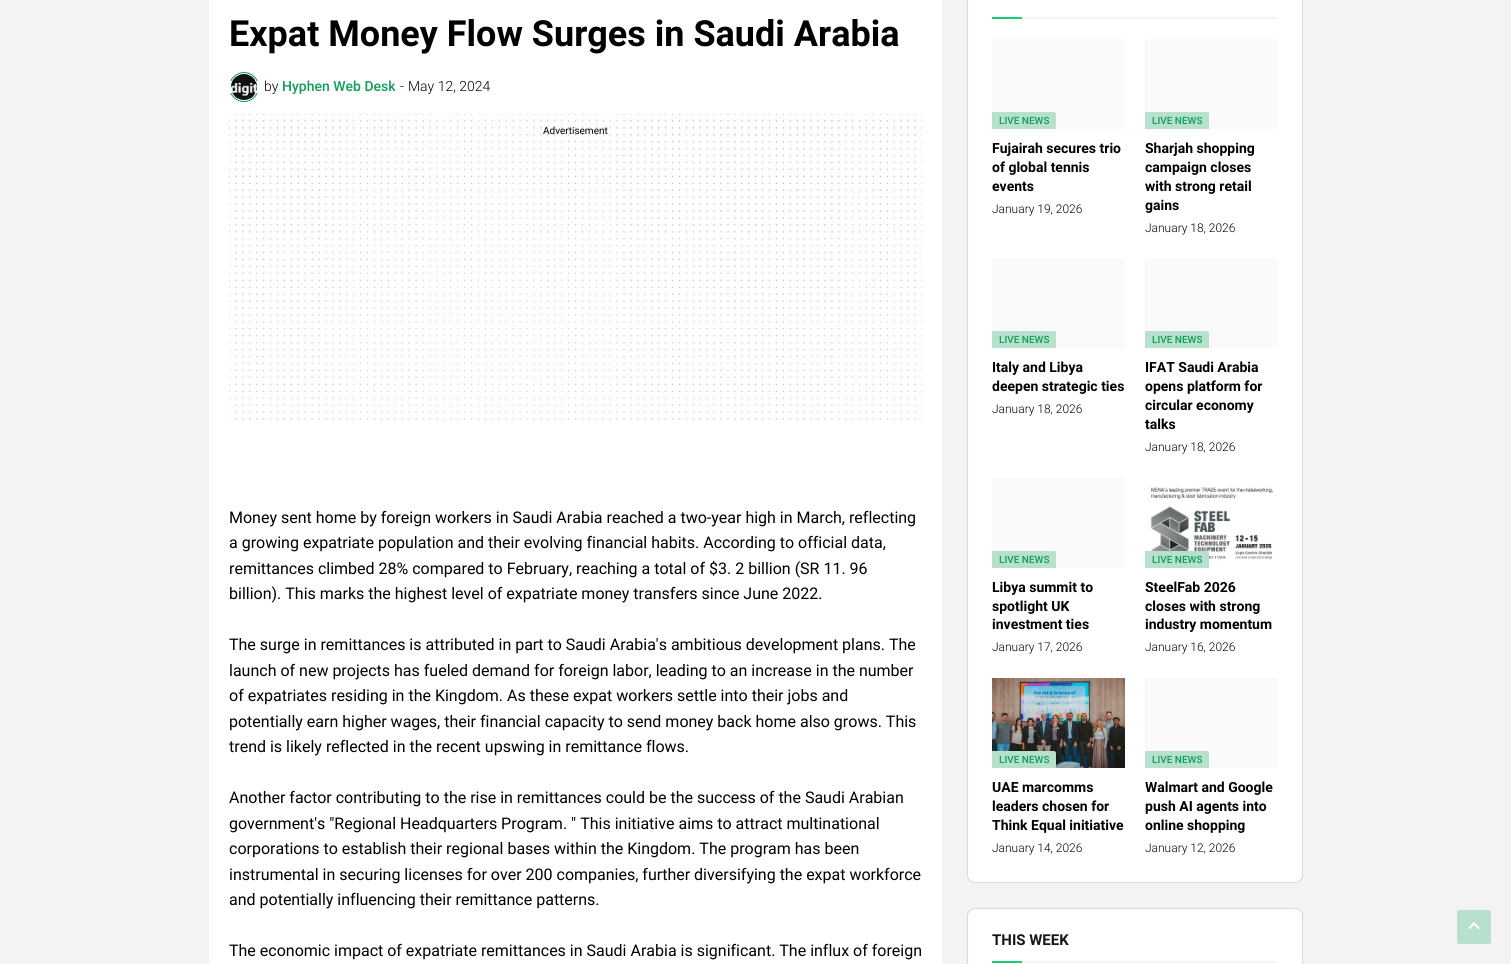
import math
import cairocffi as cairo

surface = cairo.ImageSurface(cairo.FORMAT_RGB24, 1511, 964)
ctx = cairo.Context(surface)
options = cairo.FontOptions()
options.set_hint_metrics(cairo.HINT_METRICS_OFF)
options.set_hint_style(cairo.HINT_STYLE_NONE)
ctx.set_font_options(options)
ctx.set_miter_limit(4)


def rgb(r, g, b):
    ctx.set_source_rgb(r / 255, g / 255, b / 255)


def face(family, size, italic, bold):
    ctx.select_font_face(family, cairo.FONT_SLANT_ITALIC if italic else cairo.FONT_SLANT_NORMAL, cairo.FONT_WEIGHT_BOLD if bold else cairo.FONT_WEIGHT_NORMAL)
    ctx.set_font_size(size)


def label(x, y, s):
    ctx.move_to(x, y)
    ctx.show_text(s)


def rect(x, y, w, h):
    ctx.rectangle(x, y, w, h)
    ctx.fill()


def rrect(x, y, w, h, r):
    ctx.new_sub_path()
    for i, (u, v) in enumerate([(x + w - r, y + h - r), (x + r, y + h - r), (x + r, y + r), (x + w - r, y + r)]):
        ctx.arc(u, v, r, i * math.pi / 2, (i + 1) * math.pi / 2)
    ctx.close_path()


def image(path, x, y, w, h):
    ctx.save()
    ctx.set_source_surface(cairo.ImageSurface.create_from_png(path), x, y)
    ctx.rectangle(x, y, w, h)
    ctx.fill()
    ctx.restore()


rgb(244, 242, 242)
ctx.paint()
rgb(255, 255, 255)
rect(209, 0, 733, 964)
face('Roboto', 36, 0, 1)
rgb(0, 0, 0)
label(229, 46, 'Expat Money Flow Surges in Saudi Arabia')
ctx.new_path()
ctx.arc(244, 87, 14.5, 0, 2 * math.pi)
rgb(15, 157, 88)
ctx.set_line_width(1)
ctx.stroke()
rgb(255, 255, 255)
rect(229, 81, 30, 12)
image('image0.png', 231, 74, 26, 26)
face('Roboto Light', 14, 0, 0)
rgb(0, 0, 0)
label(264, 91, 'by')
face('Roboto Medium', 14, 0, 0)
rgb(15, 157, 88)
label(282, 91, 'Hyphen Web Desk')
face('Roboto Light', 14, 0, 0)
rgb(0, 0, 0)
label(400, 91, '-')
label(408, 91, 'May 12, 2024')
image('image1.png', 229, 114, 693, 308)
face('Roboto', 10, 0, 0)
label(543, 134, 'Advertisement')
face('Roboto', 16, 0, 0)
label(229, 523, 'Money sent home by foreign workers in Saudi Arabia reached a two-year high in March, reflecting')
label(229, 548, 'a growing expatriate population and their evolving financial habits. According to official data,')
label(229, 574, 'remittances climbed 28% compared to February, reaching a total of $3. 2 billion (SR 11. 96')
label(229, 599, 'billion). This marks the highest level of expatriate money transfers since June 2022.')
label(229, 650, 'The surge in remittances is attributed in part to Saudi Arabia\'s ambitious development plans. The')
label(229, 676, 'launch of new projects has fueled demand for foreign labor, leading to an increase in the number')
label(229, 701, 'of expatriates residing in the Kingdom. As these expat workers settle into their jobs and')
label(229, 727, 'potentially earn higher wages, their financial capacity to send money back home also grows. This')
label(229, 752, 'trend is likely reflected in the recent upswing in remittance flows.')
label(229, 803, 'Another factor contributing to the rise in remittances could be the success of the Saudi Arabian')
label(229, 829, 'government\'s "Regional Headquarters Program. " This initiative aims to attract multinational')
label(229, 854, 'corporations to establish their regional bases within the Kingdom. The program has been')
label(229, 880, 'instrumental in securing licenses for over 200 companies, further diversifying the expat workforce')
label(229, 905, 'and potentially influencing their remittance patterns.')
label(229, 956, 'The economic impact of expatriate remittances in Saudi Arabia is significant. The influx of foreign')
rgb(255, 255, 255)
rrect(967.5, -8.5, 335, 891, 7.5)
ctx.fill_preserve()
rgb(216, 216, 216)
ctx.stroke()
rgb(245, 245, 245)
rect(1022, 17, 256, 2)
rgb(16, 208, 115)
rect(992, 17, 30, 2)
rgb(250, 250, 250)
rect(992, 39, 133, 90)
rgb(183, 225, 205)
ctx.new_path()
ctx.move_to(992, 112)
ctx.line_to(1054, 112)
ctx.curve_to(1055, 112, 1056, 113, 1056, 114)
ctx.line_to(1056, 129)
ctx.line_to(992, 129)
ctx.close_path()
ctx.fill()
face('Roboto Medium', 10, 0, 0)
rgb(15, 157, 88)
label(999, 124, 'LIVE NEWS')
face('Roboto', 14, 0, 1)
rgb(0, 0, 0)
label(992, 153, 'Fujairah secures trio')
label(992, 172, 'of global tennis')
label(992, 191, 'events')
face('Roboto Light', 12, 0, 0)
label(992, 213, 'January 19, 2026')
rgb(250, 250, 250)
rect(1145, 39, 133, 90)
rgb(183, 225, 205)
ctx.new_path()
ctx.move_to(1145, 112)
ctx.line_to(1207, 112)
ctx.curve_to(1208, 112, 1209, 113, 1209, 114)
ctx.line_to(1209, 129)
ctx.line_to(1145, 129)
ctx.close_path()
ctx.fill()
face('Roboto Medium', 10, 0, 0)
rgb(15, 157, 88)
label(1152, 124, 'LIVE NEWS')
face('Roboto', 14, 0, 1)
rgb(0, 0, 0)
label(1145, 153, 'Sharjah shopping')
label(1145, 172, 'campaign closes')
label(1145, 191, 'with strong retail')
label(1145, 210, 'gains')
face('Roboto Light', 12, 0, 0)
label(1145, 232, 'January 18, 2026')
rgb(250, 250, 250)
rect(992, 258, 133, 90)
rgb(183, 225, 205)
ctx.new_path()
ctx.move_to(992, 331)
ctx.line_to(1054, 331)
ctx.curve_to(1055, 331, 1056, 332, 1056, 333)
ctx.line_to(1056, 348)
ctx.line_to(992, 348)
ctx.close_path()
ctx.fill()
face('Roboto Medium', 10, 0, 0)
rgb(15, 157, 88)
label(999, 343, 'LIVE NEWS')
face('Roboto', 14, 0, 1)
rgb(0, 0, 0)
label(992, 372, 'Italy and Libya')
label(992, 391, 'deepen strategic ties')
face('Roboto Light', 12, 0, 0)
label(992, 413, 'January 18, 2026')
rgb(250, 250, 250)
rect(1145, 258, 133, 90)
rgb(183, 225, 205)
ctx.new_path()
ctx.move_to(1145, 331)
ctx.line_to(1207, 331)
ctx.curve_to(1208, 331, 1209, 332, 1209, 333)
ctx.line_to(1209, 348)
ctx.line_to(1145, 348)
ctx.close_path()
ctx.fill()
face('Roboto Medium', 10, 0, 0)
rgb(15, 157, 88)
label(1152, 343, 'LIVE NEWS')
face('Roboto', 14, 0, 1)
rgb(0, 0, 0)
label(1145, 372, 'IFAT Saudi Arabia')
label(1145, 391, 'opens platform for')
label(1145, 410, 'circular economy')
label(1145, 429, 'talks')
face('Roboto Light', 12, 0, 0)
label(1145, 451, 'January 18, 2026')
rgb(250, 250, 250)
rect(992, 478, 133, 90)
rgb(183, 225, 205)
ctx.new_path()
ctx.move_to(992, 551)
ctx.line_to(1054, 551)
ctx.curve_to(1055, 551, 1056, 552, 1056, 553)
ctx.line_to(1056, 568)
ctx.line_to(992, 568)
ctx.close_path()
ctx.fill()
face('Roboto Medium', 10, 0, 0)
rgb(15, 157, 88)
label(999, 563, 'LIVE NEWS')
face('Roboto', 14, 0, 1)
rgb(0, 0, 0)
label(992, 592, 'Libya summit to')
label(992, 611, 'spotlight UK')
label(992, 629, 'investment ties')
face('Roboto Light', 12, 0, 0)
label(992, 651, 'January 17, 2026')
image('image2.png', 1145, 478, 133, 90)
rgb(183, 225, 205)
ctx.new_path()
ctx.move_to(1145, 551)
ctx.line_to(1207, 551)
ctx.curve_to(1208, 551, 1209, 552, 1209, 553)
ctx.line_to(1209, 568)
ctx.line_to(1145, 568)
ctx.close_path()
ctx.fill()
face('Roboto Medium', 10, 0, 0)
rgb(15, 157, 88)
label(1152, 563, 'LIVE NEWS')
face('Roboto', 14, 0, 1)
rgb(0, 0, 0)
label(1145, 592, 'SteelFab 2026')
label(1145, 611, 'closes with strong')
label(1145, 629, 'industry momentum')
face('Roboto Light', 12, 0, 0)
label(1145, 651, 'January 16, 2026')
image('image3.png', 992, 678, 133, 90)
rgb(183, 225, 205)
ctx.new_path()
ctx.move_to(992, 751)
ctx.line_to(1054, 751)
ctx.curve_to(1055, 751, 1056, 752, 1056, 753)
ctx.line_to(1056, 768)
ctx.line_to(992, 768)
ctx.close_path()
ctx.fill()
face('Roboto Medium', 10, 0, 0)
rgb(15, 157, 88)
label(999, 763, 'LIVE NEWS')
face('Roboto', 14, 0, 1)
rgb(0, 0, 0)
label(992, 792, 'UAE marcomms')
label(992, 811, 'leaders chosen for')
label(992, 830, 'Think Equal initiative')
face('Roboto Light', 12, 0, 0)
label(992, 852, 'January 14, 2026')
rgb(250, 250, 250)
rect(1145, 678, 133, 90)
rgb(183, 225, 205)
ctx.new_path()
ctx.move_to(1145, 751)
ctx.line_to(1207, 751)
ctx.curve_to(1208, 751, 1209, 752, 1209, 753)
ctx.line_to(1209, 768)
ctx.line_to(1145, 768)
ctx.close_path()
ctx.fill()
face('Roboto Medium', 10, 0, 0)
rgb(15, 157, 88)
label(1152, 763, 'LIVE NEWS')
face('Roboto', 14, 0, 1)
rgb(0, 0, 0)
label(1145, 792, 'Walmart and Google')
label(1145, 811, 'push AI agents into')
label(1145, 830, 'online shopping')
face('Roboto Light', 12, 0, 0)
label(1145, 852, 'January 12, 2026')
rgb(255, 255, 255)
rrect(967.5, 908.5, 335, 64, 7.5)
ctx.fill_preserve()
rgb(216, 216, 216)
ctx.stroke()
rgb(245, 245, 245)
rect(1022, 961, 256, 2)
face('Roboto', 15, 0, 1)
rgb(22, 22, 26)
label(992, 945, 'THIS WEEK')
rgb(16, 208, 115)
rect(992, 961, 30, 2)
rgb(183, 225, 205)
rrect(1457, 910, 34, 34, 2)
ctx.fill()
image('image4.png', 1468, 922, 12, 7)
surface.write_to_png('render.png')
